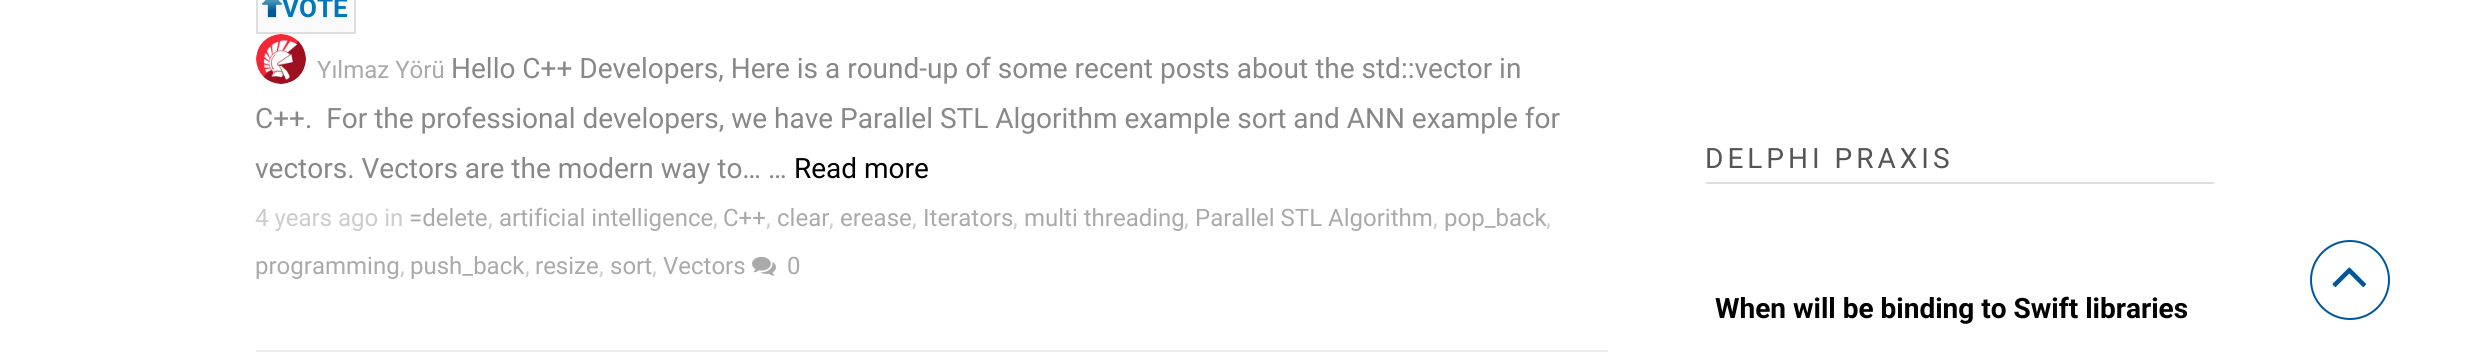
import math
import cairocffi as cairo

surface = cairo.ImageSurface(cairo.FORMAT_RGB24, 2470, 360)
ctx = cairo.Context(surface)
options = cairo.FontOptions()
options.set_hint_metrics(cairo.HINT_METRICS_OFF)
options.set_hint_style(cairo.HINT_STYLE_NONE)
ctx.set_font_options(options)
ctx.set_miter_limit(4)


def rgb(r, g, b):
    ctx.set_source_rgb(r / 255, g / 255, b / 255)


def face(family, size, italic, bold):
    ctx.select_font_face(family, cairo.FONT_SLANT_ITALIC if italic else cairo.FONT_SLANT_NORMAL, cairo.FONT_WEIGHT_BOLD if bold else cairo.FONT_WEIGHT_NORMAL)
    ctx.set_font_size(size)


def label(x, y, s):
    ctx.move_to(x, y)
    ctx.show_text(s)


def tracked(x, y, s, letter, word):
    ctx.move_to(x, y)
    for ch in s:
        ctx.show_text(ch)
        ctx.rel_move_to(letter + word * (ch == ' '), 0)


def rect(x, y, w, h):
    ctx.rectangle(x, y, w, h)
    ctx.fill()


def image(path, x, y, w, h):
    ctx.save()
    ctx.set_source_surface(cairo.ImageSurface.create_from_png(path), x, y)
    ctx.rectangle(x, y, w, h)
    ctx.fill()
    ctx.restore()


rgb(255, 255, 255)
ctx.paint()
rgb(238, 238, 238)
rect(256, 350, 1352, 2)
rgb(250, 250, 250)
ctx.rectangle(257, -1, 98, 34)
ctx.fill_preserve()
rgb(222, 222, 222)
ctx.stroke()
image('image0.png', 262, 0, 20, 18)
face('Roboto', 26, 0, 1)
rgb(2, 119, 189)
label(282, 17, 'VOTE')
image('image1.png', 256, 34, 50, 50)
face('Roboto', 24, 0, 0)
rgb(170, 170, 170)
label(317, 78, 'Yılmaz Yörü')
face('Roboto', 28, 0, 0)
rgb(136, 136, 136)
label(451, 78, 'Hello C++ Developers, Here is a round-up of some recent posts about the std::vector in')
label(255, 128, 'C++.  For the professional developers, we have Parallel STL Algorithm example sort and ANN example for')
label(255, 178, 'vectors. Vectors are the modern way to… …')
rgb(0, 0, 0)
label(794, 178, 'Read more')
face('Roboto', 24, 0, 0)
rgb(204, 204, 204)
label(255, 226, '4 years ago in')
rgb(170, 170, 170)
label(409, 226, '=delete')
rgb(204, 204, 204)
label(488, 226, ',')
rgb(170, 170, 170)
label(499, 226, 'artificial intelligence')
rgb(204, 204, 204)
label(713, 226, ',')
rgb(170, 170, 170)
label(723, 226, 'C++')
rgb(204, 204, 204)
label(766, 226, ',')
rgb(170, 170, 170)
label(777, 226, 'clear')
rgb(204, 204, 204)
label(829, 226, ',')
rgb(170, 170, 170)
label(840, 226, 'erease')
rgb(204, 204, 204)
label(912, 226, ',')
rgb(170, 170, 170)
label(923, 226, 'Iterators')
rgb(204, 204, 204)
label(1013, 226, ',')
rgb(170, 170, 170)
label(1024, 226, 'multi threading')
rgb(204, 204, 204)
label(1184, 226, ',')
rgb(170, 170, 170)
label(1195, 226, 'Parallel STL Algorithm')
rgb(204, 204, 204)
label(1433, 226, ',')
rgb(170, 170, 170)
label(1444, 226, 'pop_back')
rgb(204, 204, 204)
label(1546, 226, ',')
rgb(170, 170, 170)
label(255, 274, 'programming')
rgb(204, 204, 204)
label(400, 274, ',')
rgb(170, 170, 170)
label(410, 274, 'push_back')
rgb(204, 204, 204)
label(525, 274, ',')
rgb(170, 170, 170)
label(535, 274, 'resize')
rgb(204, 204, 204)
label(599, 274, ',')
rgb(170, 170, 170)
label(610, 274, 'sort')
rgb(204, 204, 204)
label(652, 274, ',')
rgb(170, 170, 170)
label(663, 274, 'Vectors')
image('image2.png', 752, 256, 24, 20)
label(787, 274, '0')
rgb(222, 222, 222)
rect(1706, 182, 508, 2)
face('Roboto', 28, 0, 0)
rgb(85, 85, 85)
tracked(1705, 168, 'DELPHI PRAXIS', 4, 0)
face('Roboto', 28, 0, 1)
rgb(0, 0, 0)
label(1715, 318, 'When will be binding to Swift libraries')
ctx.new_path()
ctx.arc(2350, 280, 39, 0, 2 * math.pi)
rgb(1, 87, 155)
ctx.stroke()
image('image3.png', 2332, 267, 34, 20)
surface.write_to_png('render.png')
